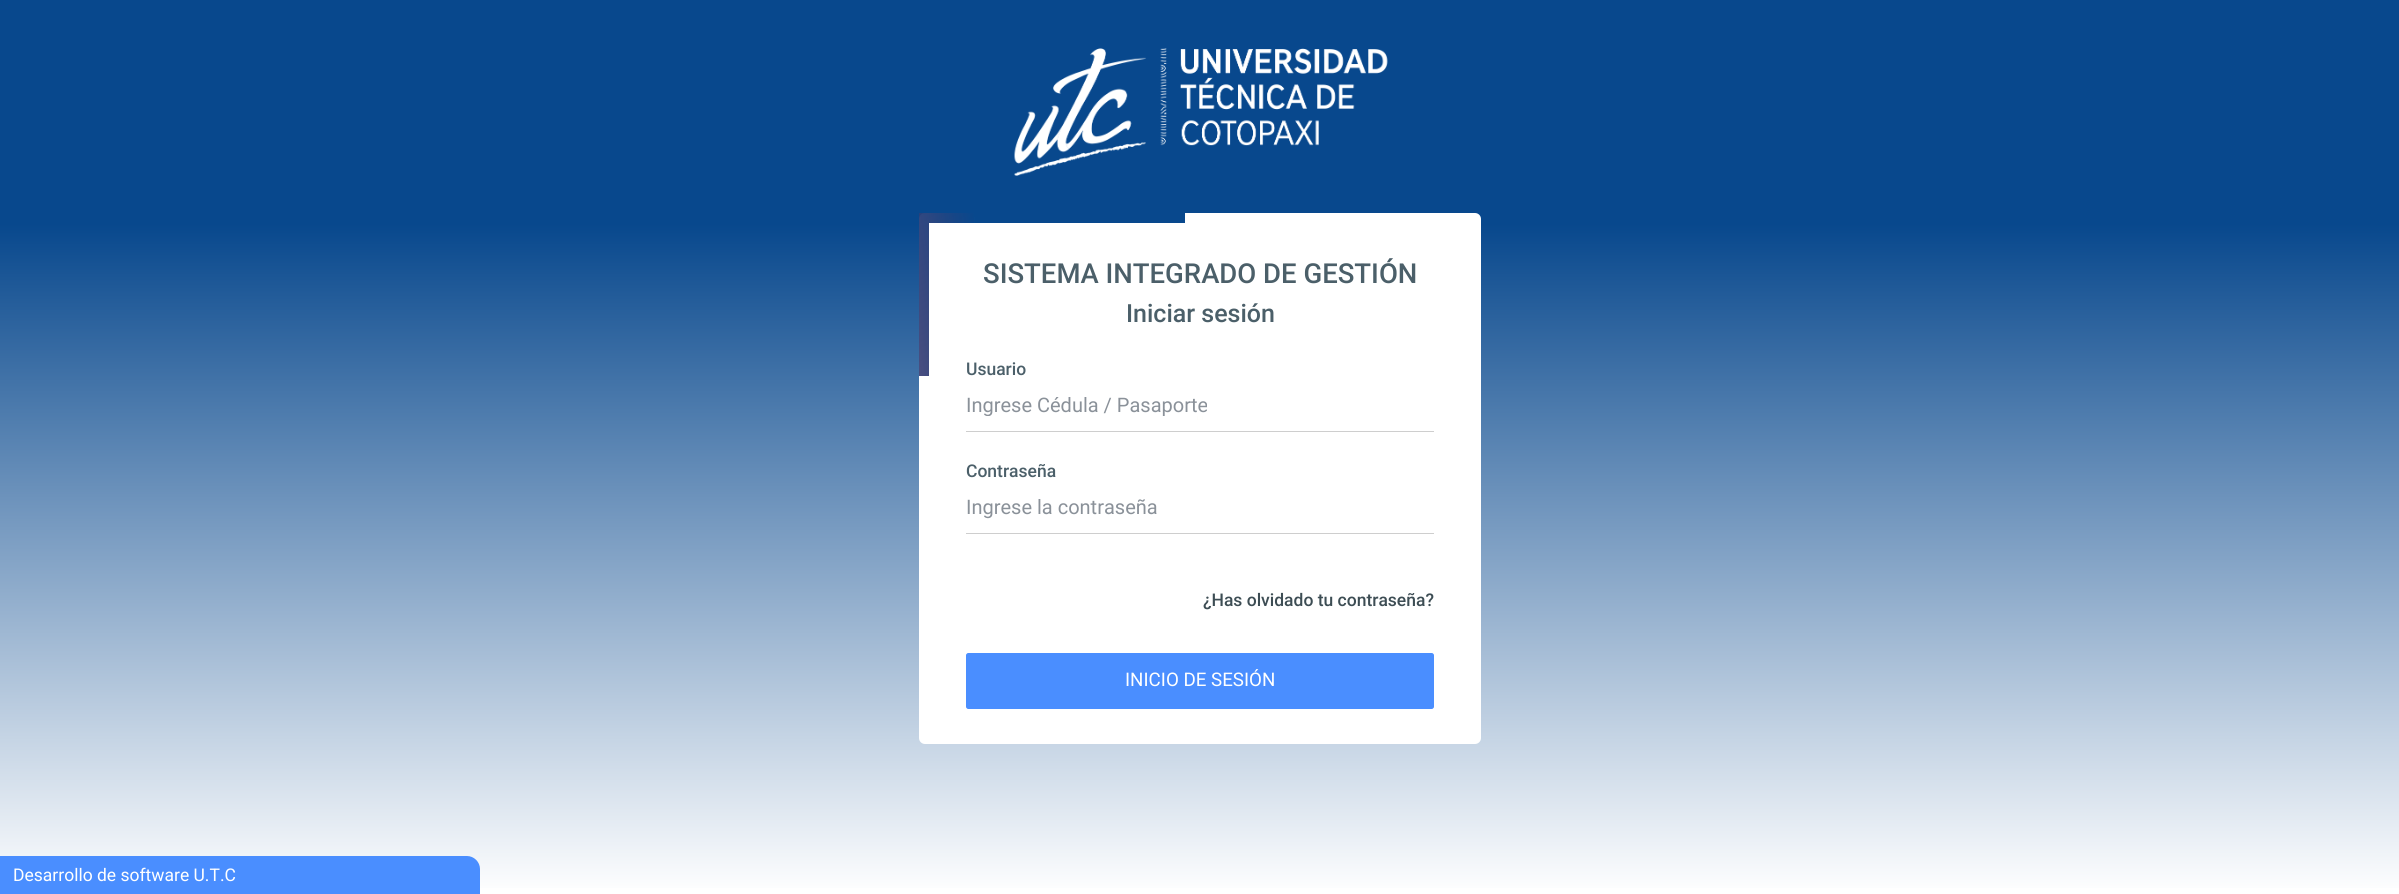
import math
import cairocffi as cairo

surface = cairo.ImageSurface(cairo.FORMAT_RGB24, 2399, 894)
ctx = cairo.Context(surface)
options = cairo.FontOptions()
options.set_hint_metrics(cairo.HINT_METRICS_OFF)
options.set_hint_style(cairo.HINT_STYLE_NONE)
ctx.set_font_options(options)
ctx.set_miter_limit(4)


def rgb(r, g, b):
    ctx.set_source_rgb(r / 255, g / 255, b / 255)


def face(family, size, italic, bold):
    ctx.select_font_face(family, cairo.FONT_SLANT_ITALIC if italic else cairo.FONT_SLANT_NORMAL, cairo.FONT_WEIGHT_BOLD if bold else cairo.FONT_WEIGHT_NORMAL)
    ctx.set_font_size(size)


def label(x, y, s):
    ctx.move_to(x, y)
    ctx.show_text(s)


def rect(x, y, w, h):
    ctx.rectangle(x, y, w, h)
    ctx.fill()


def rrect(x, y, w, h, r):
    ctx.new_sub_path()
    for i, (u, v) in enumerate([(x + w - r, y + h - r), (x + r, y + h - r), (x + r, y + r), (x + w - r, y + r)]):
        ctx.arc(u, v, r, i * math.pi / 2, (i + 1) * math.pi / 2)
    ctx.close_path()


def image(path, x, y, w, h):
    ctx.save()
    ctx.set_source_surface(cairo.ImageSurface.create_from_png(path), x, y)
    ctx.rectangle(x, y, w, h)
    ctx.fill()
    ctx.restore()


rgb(255, 255, 255)
ctx.paint()
gradient = cairo.LinearGradient(1200, 0, 1200, 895)
gradient.add_color_stop_rgba(0.25, 0.031, 0.282, 0.553, 1)
gradient.add_color_stop_rgba(1, 1, 1, 1, 1)
ctx.set_source(gradient)
rect(0, 0, 2399, 888)
image('image0.png', 1014, 48, 374, 128)
rgb(255, 255, 255)
rrect(919, 213, 562, 531, 6)
ctx.fill()
gradient = cairo.LinearGradient(681, 143, 1226, 47)
gradient.add_color_stop_rgba(0, 0.839, 0.102, 0.118, 0)
gradient.add_color_stop_rgba(0.5, 0.839, 0.102, 0.118, 1)
gradient.add_color_stop_rgba(1, 0.839, 0.102, 0.118, 1)
ctx.set_source(gradient)
rect(919, 213, 55, 163)
gradient = cairo.LinearGradient(681, 143, 1226, 47)
gradient.add_color_stop_rgba(0, 0.031, 0.282, 0.553, 0)
gradient.add_color_stop_rgba(0.5, 0.031, 0.282, 0.553, 1)
gradient.add_color_stop_rgba(1, 0.031, 0.282, 0.553, 1)
ctx.set_source(gradient)
rect(919, 213, 266, 163)
rgb(255, 255, 255)
rect(929, 223, 256, 153)
face('Roboto Medium', 27.5, 0, 0)
rgb(75, 95, 105)
label(983, 283, 'SISTEMA INTEGRADO DE GESTIÓN')
face('Roboto Medium', 25, 0, 0)
label(1126, 322, 'Iniciar sesión')
face('Roboto Medium', 17.5, 0, 0)
label(966, 375, 'Usuario')
rgb(206, 206, 206)
rect(966, 431, 468, 1)
ctx.save()
ctx.rectangle(966, 393, 468, 23)
ctx.clip()
face('Roboto', 20, 0, 0)
rgb(138, 145, 153)
label(966, 412, 'Ingrese Cédula / Pasaporte')
ctx.restore()
rgb(75, 95, 105)
label(966, 477, 'Contraseña')
rgb(206, 206, 206)
rect(966, 533, 468, 1)
face('Roboto', 20, 0, 0)
rgb(138, 145, 153)
label(966, 514, 'Ingrese la contraseña')
face('Roboto Medium', 17.5, 0, 0)
rgb(61, 77, 84)
label(1203, 606, '¿Has olvidado tu contraseña?')
rgb(74, 142, 255)
rrect(966.5, 653.5, 467, 55, 2)
ctx.fill_preserve()
ctx.set_line_width(1)
ctx.stroke()
face('Roboto', 18.75, 0, 0)
rgb(255, 255, 255)
label(1125, 686, 'INICIO DE SESIÓN')
ctx.save()
ctx.rectangle(1169, 416, 31, 63)
ctx.clip()
ctx.new_path()
ctx.move_to(1197.5, 418)
ctx.curve_to(1203, 417.5, 1209, 419, 1214, 421.5)
ctx.curve_to(1239.5, 435.5, 1231, 474.5, 1202.5, 477)
rgb(249, 251, 255)
ctx.set_line_width(3.7)
ctx.stroke()
ctx.restore()
ctx.save()
ctx.rectangle(1200, 416, 31, 63)
ctx.clip()
ctx.new_path()
ctx.move_to(1197.5, 477)
ctx.curve_to(1169, 474.5, 1160.5, 435.5, 1186, 421.5)
ctx.curve_to(1191, 419, 1197, 417.5, 1202.5, 418)
rgb(249, 251, 255)
ctx.set_line_width(3.7)
ctx.stroke()
ctx.restore()
ctx.save()
ctx.rectangle(1169, 416, 31, 63)
ctx.clip()
ctx.new_path()
ctx.move_to(1197.5, 418)
ctx.curve_to(1203, 417.5, 1209, 419, 1214, 421.5)
ctx.curve_to(1239.5, 435.5, 1231, 474.5, 1202.5, 477)
rgb(255, 249, 249)
ctx.set_line_width(3.7)
ctx.stroke()
ctx.restore()
ctx.save()
ctx.rectangle(1200, 416, 31, 63)
ctx.clip()
ctx.new_path()
ctx.move_to(1197.5, 477)
ctx.curve_to(1169, 474.5, 1160.5, 435.5, 1186, 421.5)
ctx.curve_to(1191, 419, 1197, 417.5, 1202.5, 418)
rgb(255, 249, 249)
ctx.set_line_width(3.7)
ctx.stroke()
ctx.restore()
ctx.save()
ctx.rectangle(1169, 416, 31, 63)
ctx.clip()
ctx.new_path()
ctx.move_to(1197.5, 418)
ctx.curve_to(1203, 417.5, 1209, 419, 1214, 421.5)
ctx.curve_to(1239.5, 435.5, 1231, 474.5, 1202.5, 477)
rgb(255, 254, 246)
ctx.set_line_width(3.7)
ctx.stroke()
ctx.restore()
ctx.save()
ctx.rectangle(1200, 416, 31, 63)
ctx.clip()
ctx.new_path()
ctx.move_to(1197.5, 477)
ctx.curve_to(1169, 474.5, 1160.5, 435.5, 1186, 421.5)
ctx.curve_to(1191, 419, 1197, 417.5, 1202.5, 418)
rgb(255, 254, 246)
ctx.set_line_width(3.7)
ctx.stroke()
ctx.restore()
ctx.save()
ctx.rectangle(1169, 416, 31, 63)
ctx.clip()
ctx.new_path()
ctx.move_to(1197.5, 418)
ctx.curve_to(1203, 417.5, 1209, 419, 1214, 421.5)
ctx.curve_to(1239.5, 435.5, 1231, 474.5, 1202.5, 477)
ctx.set_line_width(3.7)
ctx.stroke()
ctx.restore()
ctx.save()
ctx.rectangle(1200, 416, 31, 63)
ctx.clip()
ctx.new_path()
ctx.move_to(1197.5, 477)
ctx.curve_to(1169, 474.5, 1160.5, 435.5, 1186, 421.5)
ctx.curve_to(1191, 419, 1197, 417.5, 1202.5, 418)
ctx.set_line_width(3.7)
ctx.stroke()
ctx.restore()
rgb(74, 142, 255)
ctx.new_path()
ctx.move_to(0, 856)
ctx.line_to(467, 856)
ctx.curve_to(474, 856, 480, 862, 480, 869)
ctx.line_to(480, 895)
ctx.line_to(0, 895)
ctx.close_path()
ctx.fill()
face('Roboto', 17.5, 0, 0)
rgb(255, 255, 255)
label(13, 881, 'Desarrollo de software U.T.C')
surface.write_to_png('render.png')
